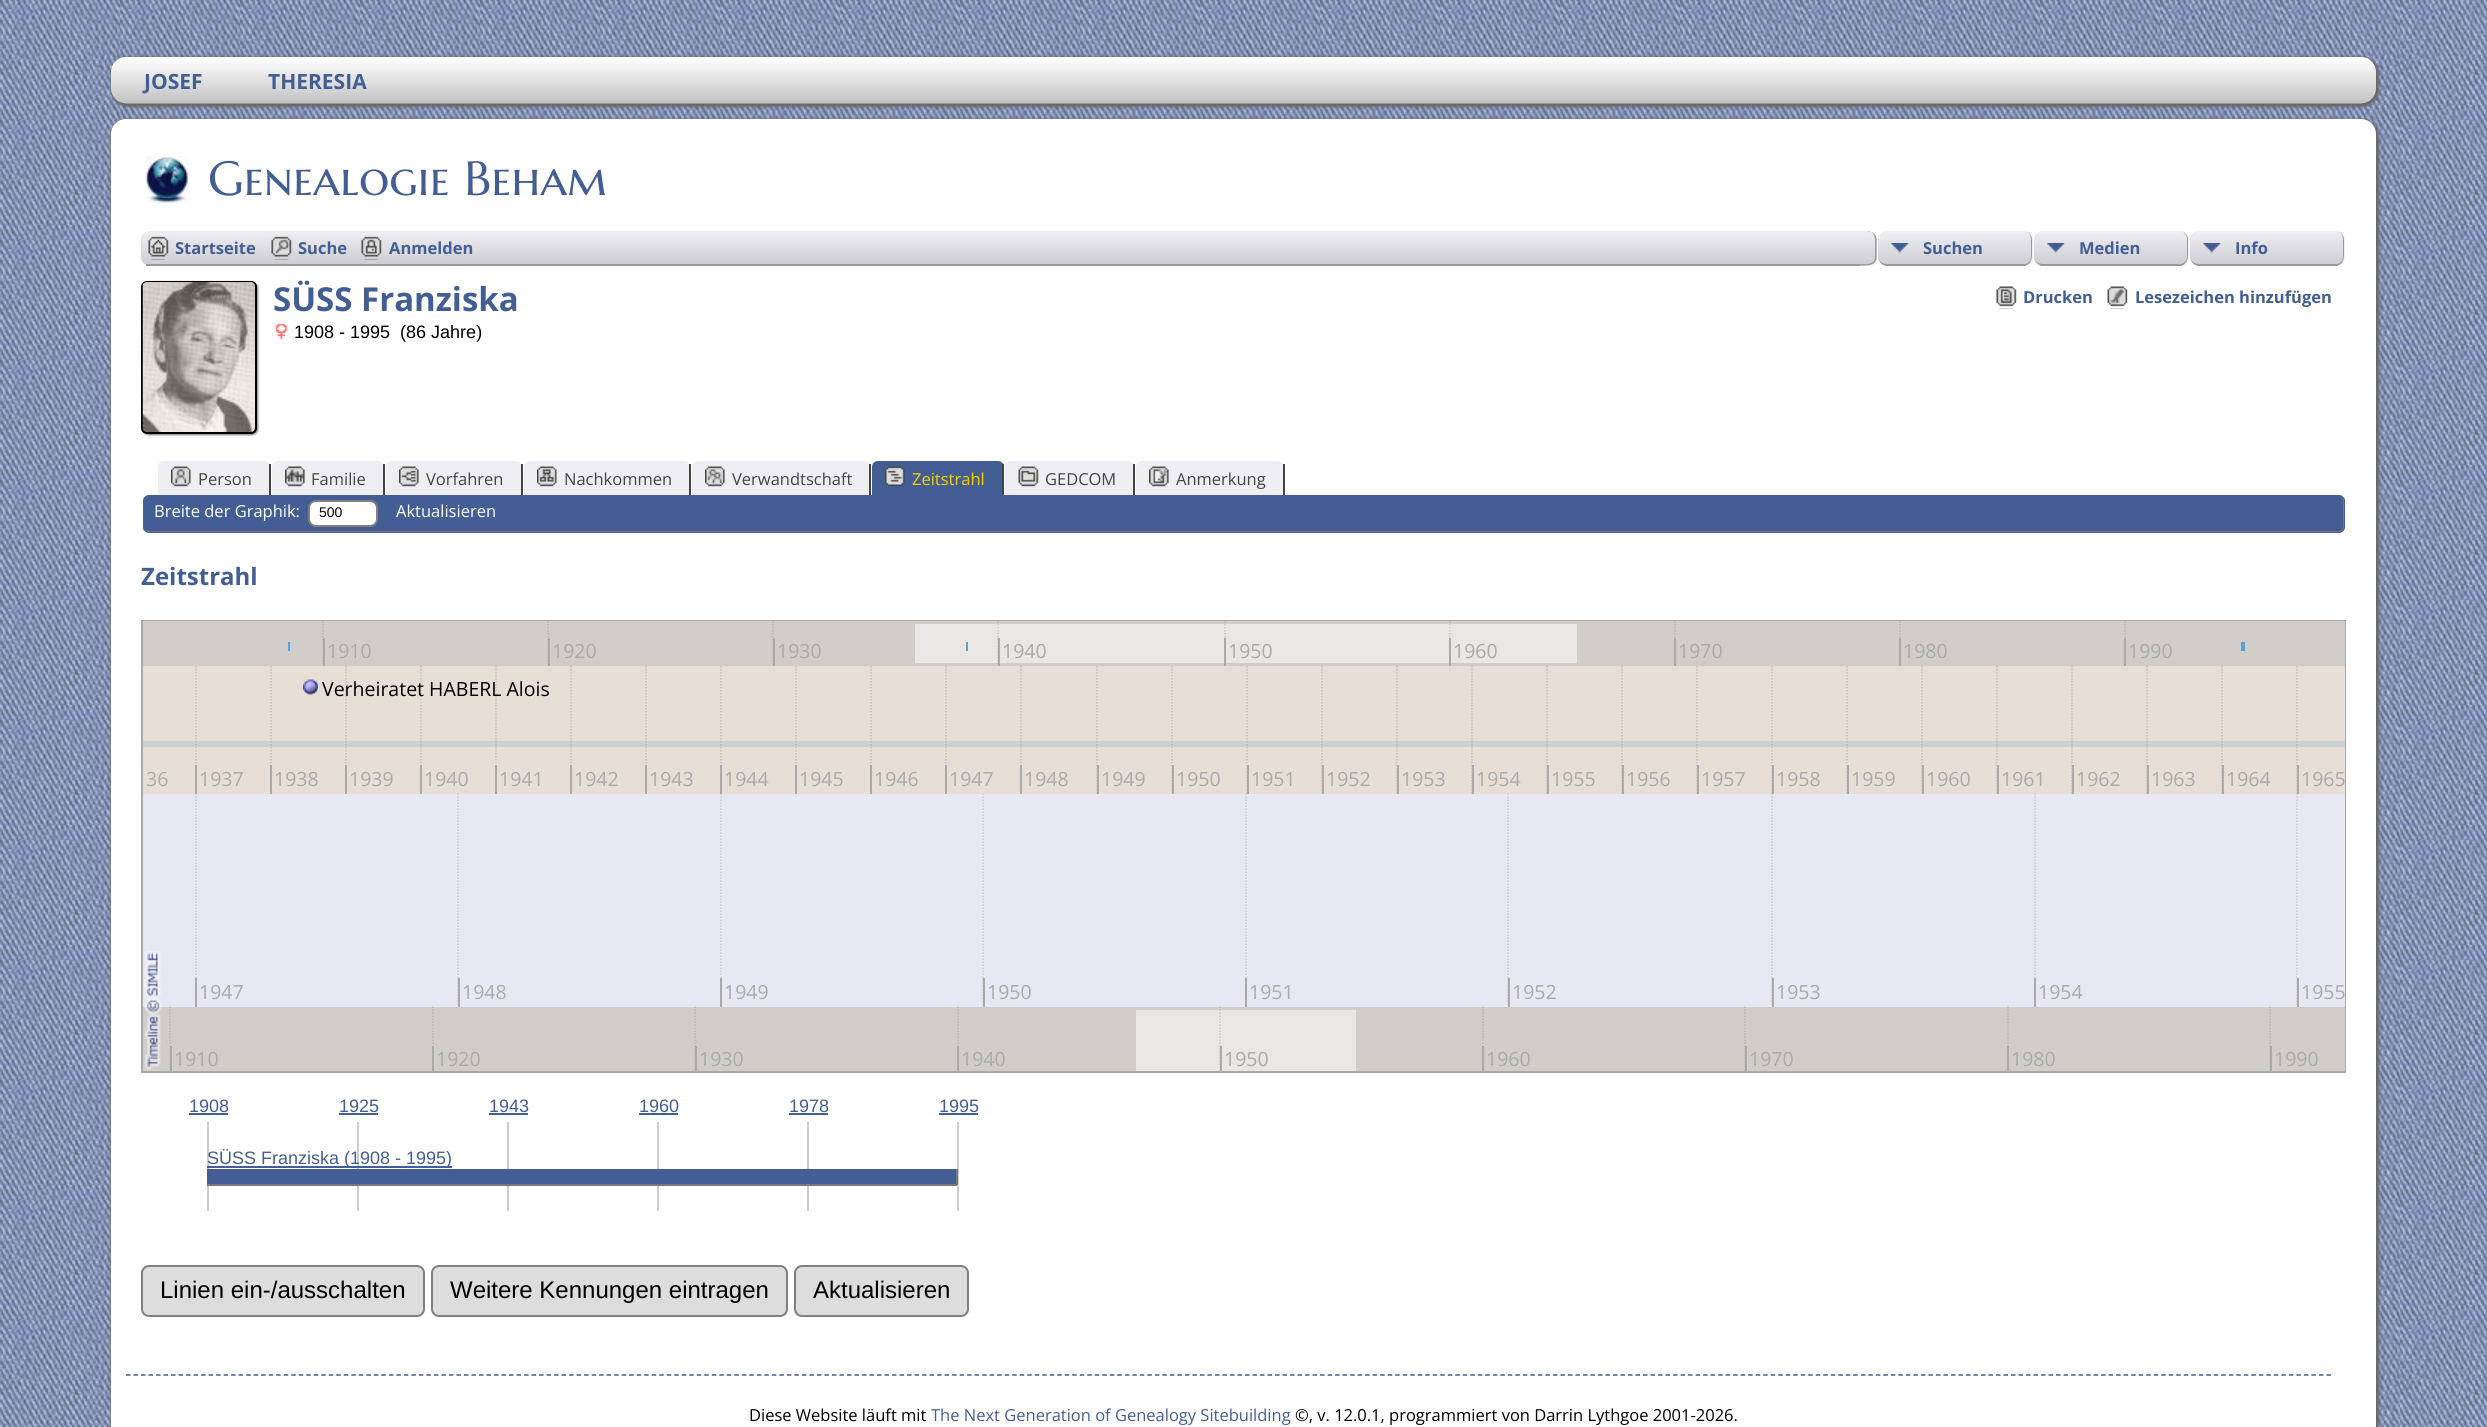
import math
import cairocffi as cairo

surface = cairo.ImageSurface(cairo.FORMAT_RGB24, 2487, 1427)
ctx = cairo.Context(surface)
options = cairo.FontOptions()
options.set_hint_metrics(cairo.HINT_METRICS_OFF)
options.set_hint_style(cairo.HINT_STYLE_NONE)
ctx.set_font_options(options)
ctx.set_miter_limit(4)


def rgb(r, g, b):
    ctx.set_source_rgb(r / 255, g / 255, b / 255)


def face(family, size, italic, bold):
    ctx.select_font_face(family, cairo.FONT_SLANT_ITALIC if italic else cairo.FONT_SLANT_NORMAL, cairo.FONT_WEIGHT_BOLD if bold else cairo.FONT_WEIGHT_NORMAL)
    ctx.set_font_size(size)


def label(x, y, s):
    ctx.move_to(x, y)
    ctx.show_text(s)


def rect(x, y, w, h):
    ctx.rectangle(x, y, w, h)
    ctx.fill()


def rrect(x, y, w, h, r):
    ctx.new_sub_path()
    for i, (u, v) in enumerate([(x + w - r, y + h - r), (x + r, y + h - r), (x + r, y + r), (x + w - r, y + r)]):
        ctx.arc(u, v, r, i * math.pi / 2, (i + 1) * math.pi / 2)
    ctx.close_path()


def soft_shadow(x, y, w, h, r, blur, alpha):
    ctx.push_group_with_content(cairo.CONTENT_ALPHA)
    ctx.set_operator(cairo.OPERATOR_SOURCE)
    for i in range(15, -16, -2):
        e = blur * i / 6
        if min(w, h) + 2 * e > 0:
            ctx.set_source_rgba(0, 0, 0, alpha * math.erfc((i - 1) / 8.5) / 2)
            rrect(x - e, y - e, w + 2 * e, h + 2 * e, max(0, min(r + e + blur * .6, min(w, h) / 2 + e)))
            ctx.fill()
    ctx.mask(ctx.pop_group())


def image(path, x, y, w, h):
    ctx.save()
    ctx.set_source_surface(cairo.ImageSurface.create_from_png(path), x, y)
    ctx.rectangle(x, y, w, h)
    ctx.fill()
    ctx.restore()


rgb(255, 255, 255)
ctx.paint()
image('image0.png', 0, 0, 2487, 1427)
rgb(102, 102, 102)
soft_shadow(111, 57, 2268, 50, 17, 1.5, 1)
image('image1.png', 111, 57, 2265, 47)
face('Open Sans', 21, 0, 1)
rgb(67, 94, 149)
label(144, 89, 'JOSEF')
label(268, 89, 'THERESIA')
rgb(102, 102, 102)
soft_shadow(111, 119, 2268, 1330, 17, 1.5, 1)
rgb(255, 255, 255)
rrect(111, 119, 2265, 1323, 15)
ctx.fill()
image('image2.png', 145, 156, 44, 48)
face('Marcellus SC', 48, 0, 0)
rgb(67, 94, 149)
label(208, 195, 'Genealogie Beham')
rgb(238, 238, 243)
rrect(141, 231, 2205, 35, 9)
ctx.fill()
ctx.save()
rrect(141, 231, 2205, 35, 9)
ctx.clip()
gradient = cairo.LinearGradient(1244, 231, 1244, 264)
gradient.add_color_stop_rgba(0, 0.933, 0.933, 0.953, 1)
gradient.add_color_stop_rgba(1, 0.808, 0.808, 0.827, 1)
ctx.set_source(gradient)
ctx.new_path()
ctx.move_to(150, 231)
ctx.line_to(2337, 231)
ctx.curve_to(2342, 231, 2346, 235, 2346, 240)
ctx.line_to(2346, 264)
ctx.line_to(141, 264)
ctx.line_to(141, 240)
ctx.curve_to(141, 235, 145, 231, 150, 231)
ctx.close_path()
ctx.fill()
gradient = cairo.LinearGradient(1244, 264, 1244, 297)
gradient.add_color_stop_rgba(0, 0.933, 0.933, 0.953, 1)
gradient.add_color_stop_rgba(1, 0.808, 0.808, 0.827, 1)
ctx.set_source(gradient)
rect(141, 264, 5, 1)
ctx.restore()
rgb(153, 153, 153)
rect(146, 264, 1714, 2)
image('image3.png', 148, 236, 21, 24)
face('Open Sans', 16.5, 0, 1)
rgb(67, 94, 149)
label(175, 254, 'Startseite')
image('image4.png', 271, 236, 21, 24)
label(298, 254, 'Suche')
image('image5.png', 361, 236, 21, 24)
label(389, 254, 'Anmelden')
rgb(255, 255, 255)
rect(1868, 231, 478, 35)
ctx.save()
ctx.new_path()
ctx.move_to(1860, 231)
ctx.line_to(1868, 231)
ctx.curve_to(1873, 231, 1877, 235, 1877, 240)
ctx.line_to(1877, 257)
ctx.curve_to(1877, 262, 1873, 266, 1868, 266)
ctx.line_to(1860, 266)
ctx.close_path()
ctx.clip()
gradient = cairo.LinearGradient(1868, 231, 1868, 264)
gradient.add_color_stop_rgba(0, 0.933, 0.933, 0.953, 1)
gradient.add_color_stop_rgba(1, 0.808, 0.808, 0.827, 1)
ctx.set_source(gradient)
rect(1860, 231, 17, 33)
gradient = cairo.LinearGradient(1868, 264, 1868, 297)
gradient.add_color_stop_rgba(0, 0.933, 0.933, 0.953, 1)
gradient.add_color_stop_rgba(1, 0.808, 0.808, 0.827, 1)
ctx.set_source(gradient)
rect(1860, 264, 17, 2)
ctx.restore()
rgb(153, 153, 153)
ctx.set_fill_rule(cairo.FILL_RULE_EVEN_ODD)
ctx.new_path()
ctx.move_to(1860, 231)
ctx.curve_to(1866.5, 231, 1874.5, 230, 1876.5, 238)
ctx.line_to(1876.5, 258.5)
ctx.curve_to(1874.5, 266.5, 1866.5, 265.5, 1860, 265.5)
ctx.close_path()
ctx.move_to(1860, 231)
ctx.line_to(1869, 231)
ctx.curve_to(1876.5, 233, 1875, 242.5, 1875, 248)
ctx.line_to(1875, 258)
ctx.curve_to(1873.5, 265.5, 1865.5, 264, 1860, 264)
ctx.close_path()
ctx.fill()
rgb(238, 238, 243)
rrect(1878, 231, 155, 35, 9)
ctx.fill()
image('image6.png', 1878, 234, 153, 30)
rgb(153, 153, 153)
ctx.new_path()
ctx.move_to(1887, 231)
ctx.line_to(2024, 231)
ctx.curve_to(2028, 231, 2032, 235, 2032, 240)
ctx.line_to(2032, 256)
ctx.curve_to(2032, 261, 2028, 266, 2024, 266)
ctx.line_to(1887, 266)
ctx.curve_to(1882, 266, 1878, 261, 1878, 256)
ctx.line_to(1878, 240)
ctx.curve_to(1878, 235, 1882, 231, 1887, 231)
ctx.close_path()
ctx.move_to(1887, 231)
ctx.line_to(2024, 231)
ctx.curve_to(2028, 231, 2031, 235, 2031, 240)
ctx.line_to(2031, 256)
ctx.curve_to(2031, 261, 2028, 264, 2024, 264)
ctx.line_to(1887, 264)
ctx.curve_to(1882, 264, 1878, 261, 1878, 256)
ctx.line_to(1878, 240)
ctx.curve_to(1878, 235, 1882, 231, 1887, 231)
ctx.close_path()
ctx.fill()
rgb(67, 94, 149)
label(1923, 254, 'Suchen')
rgb(238, 238, 243)
rrect(2034, 231, 155, 35, 9)
ctx.fill()
image('image6.png', 2034, 234, 153, 30)
rgb(153, 153, 153)
ctx.new_path()
ctx.move_to(2043, 231)
ctx.line_to(2180, 231)
ctx.curve_to(2184, 231, 2188, 235, 2188, 240)
ctx.line_to(2188, 256)
ctx.curve_to(2188, 261, 2184, 266, 2180, 266)
ctx.line_to(2043, 266)
ctx.curve_to(2038, 266, 2034, 261, 2034, 256)
ctx.line_to(2034, 240)
ctx.curve_to(2034, 235, 2038, 231, 2043, 231)
ctx.close_path()
ctx.move_to(2043, 231)
ctx.line_to(2180, 231)
ctx.curve_to(2184, 231, 2187, 235, 2187, 240)
ctx.line_to(2187, 256)
ctx.curve_to(2187, 261, 2184, 264, 2180, 264)
ctx.line_to(2043, 264)
ctx.curve_to(2038, 264, 2034, 261, 2034, 256)
ctx.line_to(2034, 240)
ctx.curve_to(2034, 235, 2038, 231, 2043, 231)
ctx.close_path()
ctx.fill()
rgb(67, 94, 149)
label(2079, 254, 'Medien')
rgb(238, 238, 243)
rrect(2190, 231, 155, 35, 9)
ctx.fill()
image('image6.png', 2190, 234, 153, 30)
rgb(153, 153, 153)
ctx.new_path()
ctx.move_to(2199, 231)
ctx.line_to(2336, 231)
ctx.curve_to(2340, 231, 2344, 235, 2344, 240)
ctx.line_to(2344, 256)
ctx.curve_to(2344, 261, 2340, 266, 2336, 266)
ctx.line_to(2199, 266)
ctx.curve_to(2194, 266, 2190, 261, 2190, 256)
ctx.line_to(2190, 240)
ctx.curve_to(2190, 235, 2194, 231, 2199, 231)
ctx.close_path()
ctx.move_to(2199, 231)
ctx.line_to(2336, 231)
ctx.curve_to(2340, 231, 2343, 235, 2343, 240)
ctx.line_to(2343, 256)
ctx.curve_to(2343, 261, 2340, 264, 2336, 264)
ctx.line_to(2199, 264)
ctx.curve_to(2194, 264, 2190, 261, 2190, 256)
ctx.line_to(2190, 240)
ctx.curve_to(2190, 235, 2194, 231, 2199, 231)
ctx.close_path()
ctx.fill()
rgb(67, 94, 149)
label(2235, 254, 'Info')
rgb(119, 119, 119)
soft_shadow(143, 282, 115, 153, 6, 1, 1)
rrect(142, 282, 114, 151, 5)
rgb(0, 0, 0)
ctx.stroke()
image('image7.png', 142, 282, 113, 150)
face('Open Sans', 33, 0, 1)
rgb(67, 94, 149)
label(273, 311, 'SÜSS Franziska')
image('image8.png', 1996, 286, 21, 23)
face('Open Sans', 16.5, 0, 1)
label(2023, 303, 'Drucken')
image('image9.png', 2107, 286, 21, 23)
label(2135, 303, 'Lesezeichen hinzufügen')
image('image10.png', 275, 323, 12, 16)
face('Liberation Sans', 18, 0, 0)
rgb(0, 0, 0)
label(294, 338, '1908 - 1995  (86 Jahre)')
rgb(238, 238, 243)
ctx.new_path()
ctx.move_to(164, 461)
ctx.line_to(264, 461)
ctx.curve_to(267.5, 461, 270, 463.5, 270, 467)
ctx.line_to(270, 495)
ctx.line_to(158, 495)
ctx.line_to(158, 467)
ctx.curve_to(158, 463.5, 160.5, 461, 164, 461)
ctx.close_path()
ctx.fill()
rgb(68, 68, 68)
rect(269, 464, 2, 31)
image('image11.png', 171, 466, 20, 21)
face('Open Sans', 16.5, 0, 0)
label(198, 485, 'Person')
rgb(238, 238, 243)
ctx.new_path()
ctx.move_to(278, 461)
ctx.line_to(378, 461)
ctx.curve_to(381.5, 461, 384, 463.5, 384, 467)
ctx.line_to(384, 495)
ctx.line_to(272, 495)
ctx.line_to(272, 467)
ctx.curve_to(272, 463.5, 274.5, 461, 278, 461)
ctx.close_path()
ctx.fill()
rgb(68, 68, 68)
rect(383, 464, 2, 31)
image('image12.png', 285, 466, 20, 21)
label(311, 485, 'Familie')
rgb(238, 238, 243)
ctx.new_path()
ctx.move_to(392, 461)
ctx.line_to(516, 461)
ctx.curve_to(519.5, 461, 522, 463.5, 522, 467)
ctx.line_to(522, 495)
ctx.line_to(386, 495)
ctx.line_to(386, 467)
ctx.curve_to(386, 463.5, 388.5, 461, 392, 461)
ctx.close_path()
ctx.fill()
rgb(68, 68, 68)
rect(521, 464, 2, 31)
image('image13.png', 399, 466, 20, 21)
label(426, 485, 'Vorfahren')
rgb(238, 238, 243)
ctx.new_path()
ctx.move_to(530, 461)
ctx.line_to(684, 461)
ctx.curve_to(687.5, 461, 690, 463.5, 690, 467)
ctx.line_to(690, 495)
ctx.line_to(524, 495)
ctx.line_to(524, 467)
ctx.curve_to(524, 463.5, 526.5, 461, 530, 461)
ctx.close_path()
ctx.fill()
rgb(68, 68, 68)
rect(689, 464, 2, 31)
image('image14.png', 537, 466, 20, 21)
label(564, 485, 'Nachkommen')
rgb(238, 238, 243)
ctx.new_path()
ctx.move_to(698, 461)
ctx.line_to(864, 461)
ctx.curve_to(867.5, 461, 870, 463.5, 870, 467)
ctx.line_to(870, 495)
ctx.line_to(692, 495)
ctx.line_to(692, 467)
ctx.curve_to(692, 463.5, 694.5, 461, 698, 461)
ctx.close_path()
ctx.fill()
rgb(68, 68, 68)
rect(869, 464, 2, 31)
image('image15.png', 705, 466, 20, 21)
label(732, 485, 'Verwandtschaft')
rgb(67, 94, 149)
ctx.new_path()
ctx.move_to(878, 461)
ctx.line_to(998, 461)
ctx.curve_to(1001.5, 461, 1004, 463.5, 1004, 467)
ctx.line_to(1004, 495)
ctx.line_to(872, 495)
ctx.line_to(872, 467)
ctx.curve_to(872, 463.5, 874.5, 461, 878, 461)
ctx.close_path()
ctx.fill()
rgb(68, 68, 68)
rect(1002, 464, 2, 31)
image('image16.png', 885, 466, 20, 21)
rgb(255, 204, 0)
label(912, 485, 'Zeitstrahl')
rgb(238, 238, 243)
ctx.new_path()
ctx.move_to(1011, 461)
ctx.line_to(1128, 461)
ctx.curve_to(1131.5, 461, 1134, 463.5, 1134, 467)
ctx.line_to(1134, 495)
ctx.line_to(1005, 495)
ctx.line_to(1005, 467)
ctx.curve_to(1005, 463.5, 1007.5, 461, 1011, 461)
ctx.close_path()
ctx.fill()
rgb(68, 68, 68)
rect(1133, 464, 2, 31)
image('image17.png', 1018, 466, 21, 21)
label(1045, 485, 'GEDCOM')
rgb(238, 238, 243)
ctx.new_path()
ctx.move_to(1142, 461)
ctx.line_to(1278, 461)
ctx.curve_to(1281.5, 461, 1284, 463.5, 1284, 467)
ctx.line_to(1284, 495)
ctx.line_to(1136, 495)
ctx.line_to(1136, 467)
ctx.curve_to(1136, 463.5, 1138.5, 461, 1142, 461)
ctx.close_path()
ctx.fill()
rgb(68, 68, 68)
rect(1283, 464, 2, 31)
image('image18.png', 1149, 466, 20, 21)
label(1176, 485, 'Anmerkung')
rgb(67, 94, 149)
rrect(143, 495, 2202, 38, 6)
ctx.fill()
rgb(119, 119, 119)
ctx.new_path()
ctx.move_to(148, 495)
ctx.line_to(2338, 495)
ctx.curve_to(2342, 495, 2344, 498, 2344, 501)
ctx.line_to(2344, 526)
ctx.curve_to(2344, 530, 2342, 532, 2338, 532)
ctx.line_to(148, 532)
ctx.curve_to(145, 532, 142, 530, 142, 526)
ctx.line_to(142, 501)
ctx.curve_to(142, 498, 145, 495, 148, 495)
ctx.close_path()
ctx.move_to(148, 495)
ctx.line_to(2338, 495)
ctx.curve_to(2341, 495, 2343, 498, 2343, 501)
ctx.line_to(2343, 526)
ctx.curve_to(2343, 529, 2341, 531, 2338, 531)
ctx.line_to(148, 531)
ctx.curve_to(145, 531, 142, 529, 142, 526)
ctx.line_to(142, 501)
ctx.curve_to(142, 498, 145, 495, 148, 495)
ctx.close_path()
ctx.fill()
rgb(255, 255, 255)
label(154, 517, 'Breite der Graphik:')
rrect(309, 501, 68, 25, 7)
ctx.fill_preserve()
rgb(128, 128, 128)
ctx.stroke()
face('Liberation Sans', 14, 0, 0)
rgb(0, 0, 0)
label(319, 517, '500')
face('Open Sans', 16.5, 0, 0)
rgb(255, 255, 255)
label(396, 517, 'Aktualisieren')
face('Open Sans', 24, 0, 1)
rgb(67, 94, 149)
label(141, 585, 'Zeitstrahl')
ctx.rectangle(142, 621, 2203, 451)
rgb(170, 170, 170)
ctx.stroke()
rgb(209, 206, 202)
rect(143, 621, 2202, 45)
rgb(232, 231, 229)
rect(915, 624, 662, 39)
ctx.new_path()
ctx.move_to(323, 621)
ctx.line_to(323, 666)
rgb(182, 180, 177)
ctx.set_line_width(1.5)
ctx.set_dash([1.5, 1.5])
ctx.stroke()
ctx.new_path()
ctx.move_to(548, 621)
ctx.line_to(548, 666)
ctx.stroke()
ctx.new_path()
ctx.move_to(773, 621)
ctx.line_to(773, 666)
ctx.stroke()
ctx.new_path()
ctx.move_to(998, 621)
ctx.line_to(998, 666)
ctx.set_source_rgba(0.4, 0.4, 0.4, 0.25)
ctx.stroke()
ctx.new_path()
ctx.move_to(1225, 621)
ctx.line_to(1225, 666)
ctx.stroke()
ctx.new_path()
ctx.move_to(1450, 621)
ctx.line_to(1450, 666)
ctx.stroke()
ctx.new_path()
ctx.move_to(1675, 621)
ctx.line_to(1675, 666)
rgb(182, 180, 177)
ctx.stroke()
ctx.new_path()
ctx.move_to(1900, 621)
ctx.line_to(1900, 666)
ctx.stroke()
ctx.new_path()
ctx.move_to(2125, 621)
ctx.line_to(2125, 666)
ctx.stroke()
rgb(88, 160, 220)
rect(288, 642, 2, 9)
rect(966, 642, 2, 9)
rect(2241, 642, 4, 9)
rgb(170, 170, 170)
rect(323, 638, 2, 28)
face('Open Sans', 19.5, 0, 0)
label(327, 658, '1910')
rect(548, 638, 2, 28)
label(552, 658, '1920')
rect(773, 638, 2, 28)
label(777, 658, '1930')
rect(998, 638, 2, 28)
label(1002, 658, '1940')
rect(1224, 638, 2, 28)
label(1228, 658, '1950')
rect(1449, 638, 2, 28)
label(1453, 658, '1960')
rect(1674, 638, 2, 28)
label(1678, 658, '1970')
rect(1899, 638, 2, 28)
label(1903, 658, '1980')
rect(2124, 638, 2, 28)
label(2128, 658, '1990')
rgb(231, 223, 214)
rect(143, 666, 2202, 128)
ctx.new_path()
ctx.move_to(196, 666)
ctx.line_to(196, 793.5)
rgb(199, 193, 186)
ctx.stroke()
ctx.new_path()
ctx.move_to(271, 666)
ctx.line_to(271, 793.5)
ctx.stroke()
ctx.new_path()
ctx.move_to(346, 666)
ctx.line_to(346, 793.5)
ctx.stroke()
ctx.new_path()
ctx.move_to(421, 666)
ctx.line_to(421, 793.5)
ctx.stroke()
ctx.new_path()
ctx.move_to(496, 666)
ctx.line_to(496, 793.5)
ctx.stroke()
ctx.new_path()
ctx.move_to(571, 666)
ctx.line_to(571, 793.5)
ctx.stroke()
ctx.new_path()
ctx.move_to(646, 666)
ctx.line_to(646, 793.5)
ctx.stroke()
ctx.new_path()
ctx.move_to(721, 666)
ctx.line_to(721, 793.5)
ctx.stroke()
ctx.new_path()
ctx.move_to(796, 666)
ctx.line_to(796, 793.5)
ctx.stroke()
ctx.new_path()
ctx.move_to(871, 666)
ctx.line_to(871, 793.5)
ctx.stroke()
ctx.new_path()
ctx.move_to(946, 666)
ctx.line_to(946, 793.5)
ctx.stroke()
ctx.new_path()
ctx.move_to(1021, 666)
ctx.line_to(1021, 793.5)
ctx.stroke()
ctx.new_path()
ctx.move_to(1097, 666)
ctx.line_to(1097, 793.5)
ctx.stroke()
ctx.new_path()
ctx.move_to(1172, 666)
ctx.line_to(1172, 793.5)
ctx.stroke()
ctx.new_path()
ctx.move_to(1247, 666)
ctx.line_to(1247, 793.5)
ctx.stroke()
ctx.new_path()
ctx.move_to(1322, 666)
ctx.line_to(1322, 793.5)
ctx.stroke()
ctx.new_path()
ctx.move_to(1397, 666)
ctx.line_to(1397, 793.5)
ctx.stroke()
ctx.new_path()
ctx.move_to(1472, 666)
ctx.line_to(1472, 793.5)
ctx.stroke()
ctx.new_path()
ctx.move_to(1547, 666)
ctx.line_to(1547, 793.5)
ctx.stroke()
ctx.new_path()
ctx.move_to(1622, 666)
ctx.line_to(1622, 793.5)
ctx.stroke()
ctx.new_path()
ctx.move_to(1697, 666)
ctx.line_to(1697, 793.5)
ctx.stroke()
ctx.new_path()
ctx.move_to(1772, 666)
ctx.line_to(1772, 793.5)
ctx.stroke()
ctx.new_path()
ctx.move_to(1847, 666)
ctx.line_to(1847, 793.5)
ctx.stroke()
ctx.new_path()
ctx.move_to(1922, 666)
ctx.line_to(1922, 793.5)
ctx.stroke()
ctx.new_path()
ctx.move_to(1997, 666)
ctx.line_to(1997, 793.5)
ctx.stroke()
ctx.new_path()
ctx.move_to(2072, 666)
ctx.line_to(2072, 793.5)
ctx.stroke()
ctx.new_path()
ctx.move_to(2147, 666)
ctx.line_to(2147, 793.5)
ctx.stroke()
ctx.new_path()
ctx.move_to(2222, 666)
ctx.line_to(2222, 793.5)
ctx.stroke()
ctx.new_path()
ctx.move_to(2297, 666)
ctx.line_to(2297, 793.5)
ctx.stroke()
image('image19.png', 303, 679, 15, 16)
rgb(0, 0, 0)
label(322, 696, 'Verheiratet HABERL Alois')
ctx.set_source_rgba(0.345, 0.627, 0.863, 0.2)
rect(143, 741, 2202, 6)
rgb(170, 170, 170)
label(146, 786, '36')
rect(195, 765, 2, 29)
label(199, 786, '1937')
rect(270, 765, 2, 29)
label(274, 786, '1938')
rect(345, 765, 2, 29)
label(349, 786, '1939')
rect(420, 765, 2, 29)
label(424, 786, '1940')
rect(495, 765, 2, 29)
label(499, 786, '1941')
rect(570, 765, 2, 29)
label(574, 786, '1942')
rect(645, 765, 2, 29)
label(649, 786, '1943')
rect(720, 765, 2, 29)
label(724, 786, '1944')
rect(795, 765, 2, 29)
label(799, 786, '1945')
rect(870, 765, 2, 29)
label(874, 786, '1946')
rect(945, 765, 2, 29)
label(949, 786, '1947')
rect(1020, 765, 2, 29)
label(1024, 786, '1948')
rect(1097, 765, 2, 29)
label(1101, 786, '1949')
rect(1172, 765, 2, 29)
label(1176, 786, '1950')
rect(1247, 765, 2, 29)
label(1251, 786, '1951')
rect(1322, 765, 2, 29)
label(1326, 786, '1952')
rect(1397, 765, 2, 29)
label(1401, 786, '1953')
rect(1472, 765, 2, 29)
label(1476, 786, '1954')
rect(1547, 765, 2, 29)
label(1551, 786, '1955')
rect(1622, 765, 2, 29)
label(1626, 786, '1956')
rect(1697, 765, 2, 29)
label(1701, 786, '1957')
rect(1772, 765, 2, 29)
label(1776, 786, '1958')
rect(1847, 765, 2, 29)
label(1851, 786, '1959')
rect(1922, 765, 2, 29)
label(1926, 786, '1960')
rect(1997, 765, 2, 29)
label(2001, 786, '1961')
rect(2072, 765, 2, 29)
label(2076, 786, '1962')
rect(2147, 765, 2, 29)
label(2151, 786, '1963')
rect(2222, 765, 2, 29)
label(2226, 786, '1964')
rect(2297, 765, 2, 29)
label(2301, 786, '1965')
rgb(232, 232, 244)
rect(143, 794, 2202, 213)
rgb(209, 206, 202)
rect(143, 1007, 2202, 64)
image('image20.png', 144, 951, 18, 119)
ctx.new_path()
ctx.move_to(196, 793.5)
ctx.line_to(196, 1006.5)
rgb(200, 200, 209)
ctx.stroke()
ctx.new_path()
ctx.move_to(458, 793.5)
ctx.line_to(458, 1006.5)
ctx.stroke()
ctx.new_path()
ctx.move_to(721, 793.5)
ctx.line_to(721, 1006.5)
ctx.stroke()
ctx.new_path()
ctx.move_to(983, 793.5)
ctx.line_to(983, 1006.5)
ctx.stroke()
ctx.new_path()
ctx.move_to(1246, 793.5)
ctx.line_to(1246, 1006.5)
ctx.stroke()
ctx.new_path()
ctx.move_to(1508, 793.5)
ctx.line_to(1508, 1006.5)
ctx.stroke()
ctx.new_path()
ctx.move_to(1772, 793.5)
ctx.line_to(1772, 1006.5)
ctx.stroke()
ctx.new_path()
ctx.move_to(2035, 793.5)
ctx.line_to(2035, 1006.5)
ctx.stroke()
ctx.new_path()
ctx.move_to(2297, 793.5)
ctx.line_to(2297, 1006.5)
ctx.stroke()
rgb(170, 170, 170)
rect(195, 978, 2, 29)
label(199, 999, '1947')
rect(458, 978, 2, 29)
label(462, 999, '1948')
rect(720, 978, 2, 29)
label(724, 999, '1949')
rect(983, 978, 2, 29)
label(987, 999, '1950')
rect(1245, 978, 2, 29)
label(1249, 999, '1951')
rect(1508, 978, 2, 29)
label(1512, 999, '1952')
rect(1772, 978, 2, 29)
label(1776, 999, '1953')
rect(2034, 978, 2, 29)
label(2038, 999, '1954')
rect(2297, 978, 2, 29)
label(2301, 999, '1955')
ctx.save()
ctx.set_fill_rule(cairo.FILL_RULE_WINDING)
ctx.rectangle(143, 621, 2202, 450)
ctx.clip()
ctx.new_path()
ctx.move_to(170, 1006.5)
ctx.line_to(170, 1074)
rgb(182, 180, 177)
ctx.stroke()
ctx.new_path()
ctx.move_to(433, 1006.5)
ctx.line_to(433, 1074)
ctx.stroke()
ctx.new_path()
ctx.move_to(695, 1006.5)
ctx.line_to(695, 1074)
ctx.stroke()
ctx.new_path()
ctx.move_to(958, 1006.5)
ctx.line_to(958, 1074)
ctx.stroke()
ctx.restore()
rgb(232, 231, 229)
rect(1136, 1010, 220, 61)
ctx.save()
ctx.set_fill_rule(cairo.FILL_RULE_WINDING)
ctx.rectangle(143, 621, 2202, 450)
ctx.clip()
ctx.new_path()
ctx.move_to(1220, 1006.5)
ctx.line_to(1220, 1074)
ctx.set_source_rgba(0.4, 0.4, 0.4, 0.25)
ctx.stroke()
ctx.new_path()
ctx.move_to(1483, 1006.5)
ctx.line_to(1483, 1074)
rgb(182, 180, 177)
ctx.stroke()
ctx.new_path()
ctx.move_to(1745, 1006.5)
ctx.line_to(1745, 1074)
ctx.stroke()
ctx.new_path()
ctx.move_to(2008, 1006.5)
ctx.line_to(2008, 1074)
ctx.stroke()
ctx.new_path()
ctx.move_to(2270, 1006.5)
ctx.line_to(2270, 1074)
ctx.stroke()
ctx.restore()
rgb(170, 170, 170)
rect(170, 1046, 2, 25)
label(174, 1066, '1910')
rect(432, 1046, 2, 25)
label(436, 1066, '1920')
rect(695, 1046, 2, 25)
label(699, 1066, '1930')
rect(957, 1046, 2, 25)
label(961, 1066, '1940')
rect(1220, 1046, 2, 25)
label(1224, 1066, '1950')
rect(1482, 1046, 2, 25)
label(1486, 1066, '1960')
rect(1745, 1046, 2, 25)
label(1749, 1066, '1970')
rect(2007, 1046, 2, 25)
label(2011, 1066, '1980')
rect(2270, 1046, 2, 25)
label(2274, 1066, '1990')
face('Liberation Sans', 18, 0, 0)
rgb(67, 94, 149)
label(189, 1112, '1908')
rect(189, 1113, 39, 2)
label(339, 1112, '1925')
rect(339, 1113, 39, 2)
label(489, 1112, '1943')
rect(489, 1113, 39, 2)
label(639, 1112, '1960')
rect(639, 1113, 39, 2)
label(789, 1112, '1978')
rect(789, 1113, 39, 2)
label(939, 1112, '1995')
rect(939, 1113, 39, 2)
rgb(204, 204, 204)
rect(207, 1122, 2, 89)
rect(357, 1122, 2, 89)
rect(507, 1122, 2, 89)
rect(657, 1122, 2, 89)
rect(807, 1122, 2, 89)
rect(957, 1122, 2, 89)
rgb(67, 94, 149)
rect(207, 1166, 245, 2)
label(207, 1164, 'SÜSS Franziska (1908 - 1995)')
rect(207, 1169, 749, 15)
rgb(119, 119, 119)
rect(956, 1169, 2, 16)
rect(207, 1184, 750, 2)
rgb(221, 221, 221)
rrect(142, 1266, 282, 50, 7)
ctx.fill_preserve()
rgb(128, 128, 128)
ctx.set_line_width(2)
ctx.set_dash([])
ctx.stroke()
face('Liberation Sans', 24, 0, 0)
rgb(0, 0, 0)
label(160, 1298, 'Linien ein-/ausschalten')
rgb(221, 221, 221)
rrect(432, 1266, 355, 50, 7)
ctx.fill_preserve()
rgb(128, 128, 128)
ctx.stroke()
rgb(0, 0, 0)
label(450, 1298, 'Weitere Kennungen eintragen')
rgb(221, 221, 221)
rrect(795, 1266, 173, 50, 7)
ctx.fill_preserve()
rgb(128, 128, 128)
ctx.stroke()
rgb(0, 0, 0)
label(813, 1298, 'Aktualisieren')
ctx.new_path()
ctx.move_to(126, 1375)
ctx.line_to(2331, 1375)
rgb(67, 94, 149)
ctx.set_line_width(1.5)
ctx.set_dash([4.5, 3.01])
ctx.stroke()
face('Open Sans', 16.5, 0, 0)
rgb(0, 0, 0)
label(749, 1421, 'Diese Website läuft mit')
rgb(67, 94, 149)
label(931, 1421, 'The Next Generation of Genealogy Sitebuilding')
rgb(0, 0, 0)
label(1295, 1421, '©, v. 12.0.1, programmiert von Darrin Lythgoe 2001-2026.')
surface.write_to_png('render.png')
